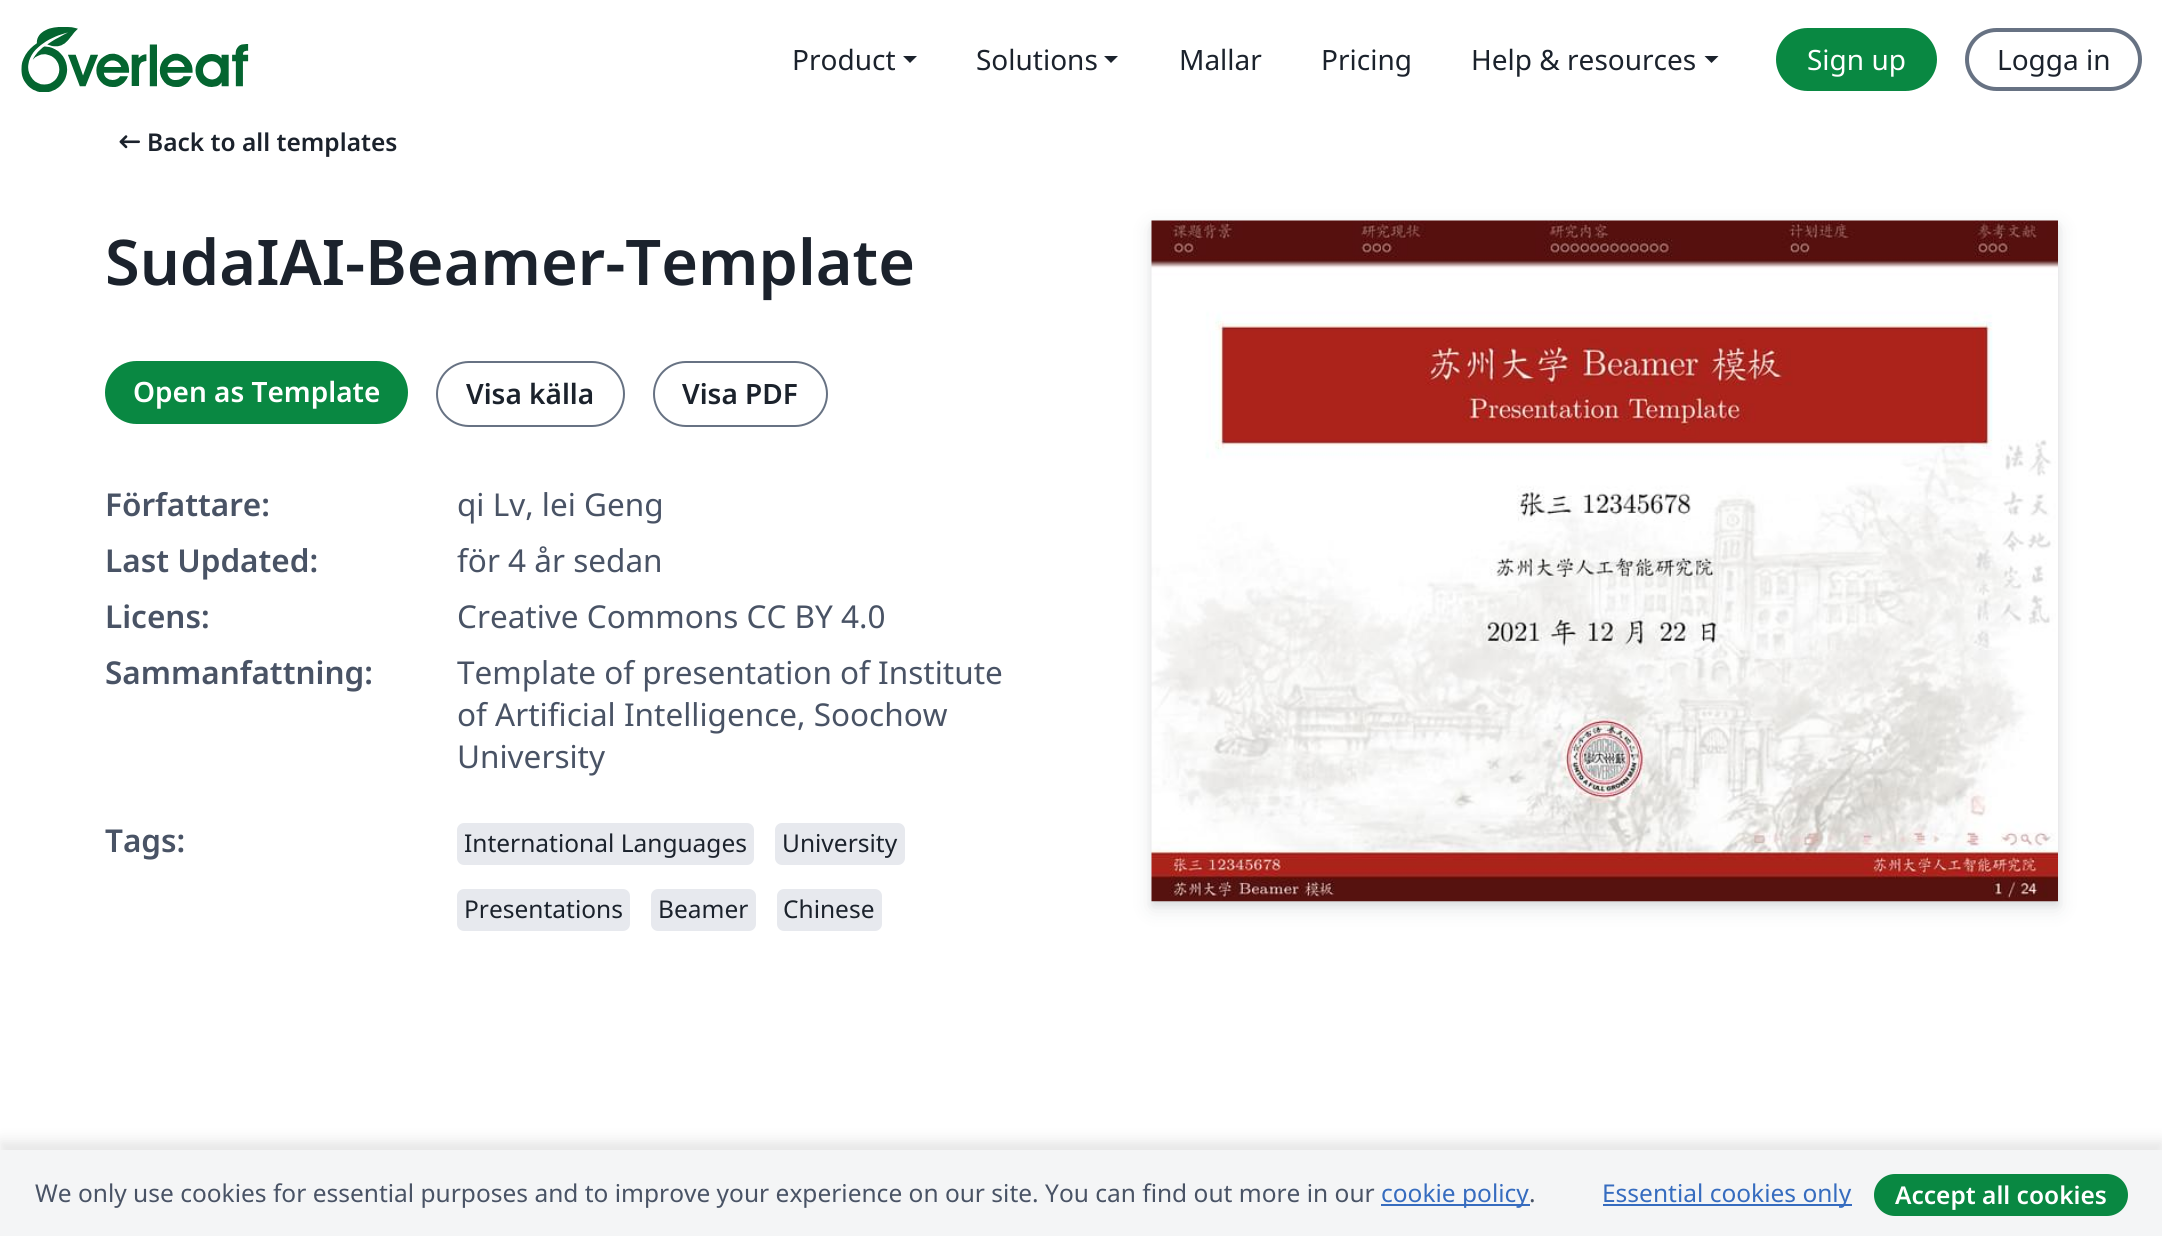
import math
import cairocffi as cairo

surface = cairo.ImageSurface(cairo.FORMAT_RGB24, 2162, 1236)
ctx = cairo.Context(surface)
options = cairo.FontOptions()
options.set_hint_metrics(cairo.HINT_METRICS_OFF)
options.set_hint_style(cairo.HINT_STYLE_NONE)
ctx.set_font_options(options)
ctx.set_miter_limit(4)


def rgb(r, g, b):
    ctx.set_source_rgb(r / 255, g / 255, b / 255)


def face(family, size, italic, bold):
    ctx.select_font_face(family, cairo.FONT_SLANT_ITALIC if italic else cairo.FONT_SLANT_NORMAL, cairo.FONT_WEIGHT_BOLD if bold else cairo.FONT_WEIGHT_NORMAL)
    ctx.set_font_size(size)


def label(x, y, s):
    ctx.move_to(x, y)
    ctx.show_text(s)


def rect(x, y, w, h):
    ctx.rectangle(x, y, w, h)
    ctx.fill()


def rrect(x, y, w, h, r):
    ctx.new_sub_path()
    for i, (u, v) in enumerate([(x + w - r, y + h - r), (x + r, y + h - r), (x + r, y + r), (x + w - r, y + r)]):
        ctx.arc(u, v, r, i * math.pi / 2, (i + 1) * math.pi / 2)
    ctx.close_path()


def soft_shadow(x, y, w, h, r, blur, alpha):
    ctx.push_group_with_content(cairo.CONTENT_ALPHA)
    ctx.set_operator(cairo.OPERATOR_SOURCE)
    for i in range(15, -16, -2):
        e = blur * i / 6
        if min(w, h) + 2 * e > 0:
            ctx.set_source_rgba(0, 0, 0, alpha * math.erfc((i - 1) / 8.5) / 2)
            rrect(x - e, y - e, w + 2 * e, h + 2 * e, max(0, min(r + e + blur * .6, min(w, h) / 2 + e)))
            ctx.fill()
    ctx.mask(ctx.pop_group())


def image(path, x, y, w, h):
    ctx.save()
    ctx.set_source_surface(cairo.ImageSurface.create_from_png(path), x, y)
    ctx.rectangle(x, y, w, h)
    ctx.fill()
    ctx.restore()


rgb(255, 255, 255)
ctx.paint()
image('image0.png', 21, 27, 228, 65)
face('Noto Sans', 28, 0, 0)
rgb(27, 34, 44)
label(792, 70, 'Product')
ctx.new_path()
ctx.move_to(903, 56)
ctx.line_to(917, 56)
ctx.line_to(910, 63)
ctx.close_path()
ctx.fill()
label(976, 70, 'Solutions')
ctx.new_path()
ctx.move_to(1104, 56)
ctx.line_to(1118, 56)
ctx.line_to(1111, 63)
ctx.close_path()
ctx.fill()
label(1179, 70, 'Mallar')
label(1321, 70, 'Pricing')
label(1471, 70, 'Help & resources')
ctx.new_path()
ctx.move_to(1704.5, 56)
ctx.line_to(1718.5, 56)
ctx.line_to(1711.5, 63)
ctx.close_path()
ctx.fill()
rgb(9, 136, 66)
rrect(1778, 30, 157, 59, 29.5)
ctx.fill_preserve()
ctx.set_line_width(4)
ctx.stroke()
rgb(255, 255, 255)
label(1807, 70, 'Sign up')
rrect(1967, 30, 173, 59, 29.5)
rgb(103, 114, 131)
ctx.stroke()
rgb(27, 34, 44)
label(1997, 70, 'Logga in')
image('image1.png', 119, 135, 21, 14)
face('Noto Sans SemiBold', 24.5, 0, 0)
label(147, 151, 'Back to all templates')
face('Noto Sans SemiBold', 63, 0, 0)
label(105, 285, 'SudaIAI-Beamer-Template')
rgb(9, 136, 66)
rrect(105, 361, 303, 63, 31.5)
ctx.fill()
face('Noto Sans SemiBold', 28, 0, 0)
rgb(255, 255, 255)
label(133, 402, 'Open as Template')
rrect(437, 362, 187, 64, 32)
rgb(103, 114, 131)
ctx.set_line_width(2)
ctx.stroke()
rgb(27, 34, 44)
label(466, 404, 'Visa källa')
rrect(654, 362, 173, 64, 32)
rgb(103, 114, 131)
ctx.stroke()
rgb(27, 34, 44)
label(682, 404, 'Visa PDF')
face('Noto Sans SemiBold', 31.5, 0, 0)
rgb(73, 83, 101)
label(105, 516, 'Författare:')
face('Noto Sans', 31.5, 0, 0)
label(457, 516, 'qi Lv, lei Geng')
face('Noto Sans SemiBold', 31.5, 0, 0)
label(105, 572, 'Last Updated:')
face('Noto Sans', 31.5, 0, 0)
label(457, 572, 'för 4 år sedan')
face('Noto Sans SemiBold', 31.5, 0, 0)
label(105, 628, 'Licens:')
face('Noto Sans', 31.5, 0, 0)
label(457, 628, 'Creative Commons CC BY 4.0')
face('Noto Sans SemiBold', 31.5, 0, 0)
label(105, 684, 'Sammanfattning:')
face('Noto Sans', 31.5, 0, 0)
label(457, 684, 'Template of presentation of Institute')
label(457, 726, 'of Artificial Intelligence, Soochow')
label(457, 768, 'University')
face('Noto Sans SemiBold', 31.5, 0, 0)
label(105, 852, 'Tags:')
rgb(231, 233, 238)
rrect(457, 823, 297, 42, 7)
ctx.fill()
face('Noto Sans', 24.5, 0, 0)
rgb(27, 34, 44)
label(464, 852, 'International Languages')
rgb(231, 233, 238)
rrect(775, 823, 130, 42, 7)
ctx.fill()
rgb(27, 34, 44)
label(782, 852, 'University')
rgb(231, 233, 238)
rrect(457, 889, 173, 42, 7)
ctx.fill()
rgb(27, 34, 44)
label(464, 918, 'Presentations')
rgb(231, 233, 238)
rrect(651, 889, 105, 42, 7)
ctx.fill()
rgb(27, 34, 44)
label(658, 918, 'Beamer')
rgb(231, 233, 238)
rrect(777, 889, 105, 42, 7)
ctx.fill()
rgb(27, 34, 44)
label(783, 918, 'Chinese')
rgb(30, 37, 48)
soft_shadow(1152, 224, 906, 681, 0, 3.5, 0.08)
soft_shadow(1152, 228, 906, 680, 0, 10.5, 0.12)
image('image2.png', 1151, 220, 907, 682)
rgb(0, 0, 0)
soft_shadow(0, 1141, 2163, 88, 0, 7, 0.1)
rgb(244, 245, 246)
rect(0, 1150, 2162, 86)
rgb(73, 83, 101)
label(35, 1202, 'We only use cookies for essential purposes and to improve your experience on our site. You can find out more in our')
rgb(54, 108, 191)
rect(1381, 1204, 149, 2)
label(1381, 1202, 'cookie policy')
rgb(73, 83, 101)
label(1529, 1202, '.')
rgb(54, 108, 191)
rect(1603, 1204, 249, 2)
label(1602, 1202, 'Essential cookies only')
rgb(9, 136, 66)
rrect(1874, 1174, 254, 42, 21)
ctx.fill()
face('Noto Sans SemiBold', 24.5, 0, 0)
rgb(255, 255, 255)
label(1895, 1204, 'Accept all cookies')
surface.write_to_png('render.png')
